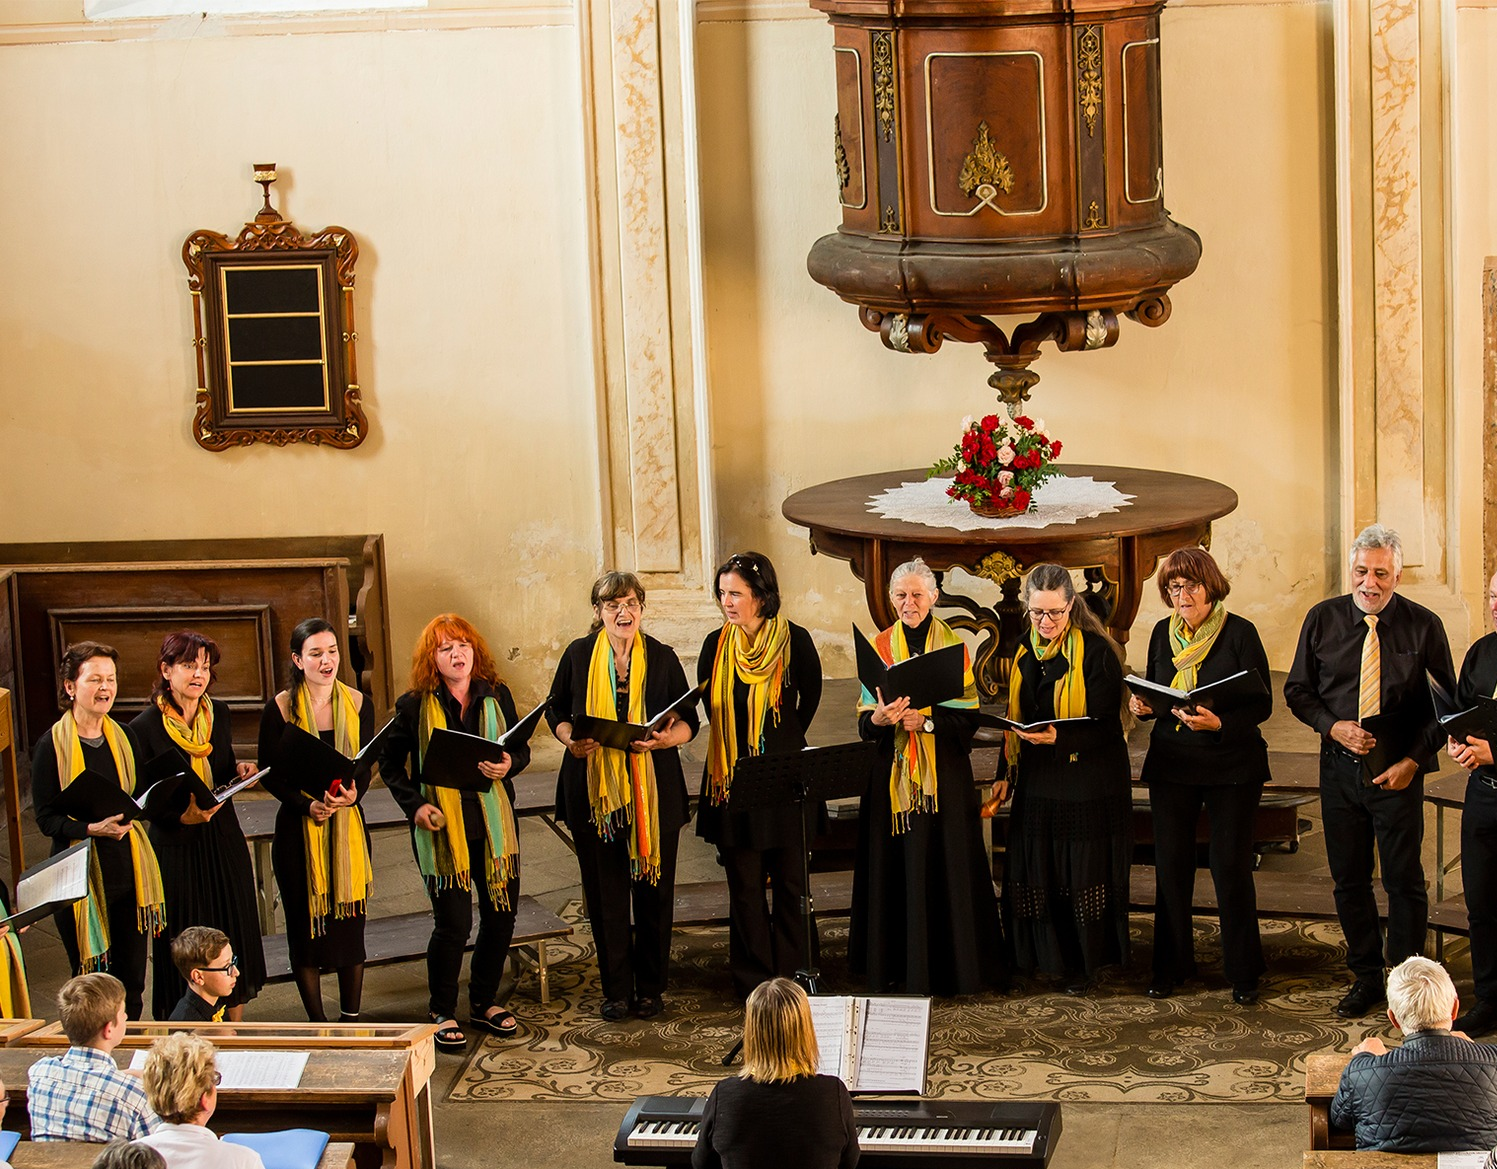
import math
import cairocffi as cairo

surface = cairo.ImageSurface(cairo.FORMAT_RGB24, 1497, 1169)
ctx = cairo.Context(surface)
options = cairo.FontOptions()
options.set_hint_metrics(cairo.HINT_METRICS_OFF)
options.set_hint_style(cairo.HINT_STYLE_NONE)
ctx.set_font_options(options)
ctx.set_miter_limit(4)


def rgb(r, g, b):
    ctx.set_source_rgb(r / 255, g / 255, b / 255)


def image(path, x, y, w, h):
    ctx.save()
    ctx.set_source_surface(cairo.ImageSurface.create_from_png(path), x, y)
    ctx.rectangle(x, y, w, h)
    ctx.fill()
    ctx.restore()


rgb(255, 255, 255)
ctx.paint()
image('image0.png', 0, 0, 1497, 1169)
surface.write_to_png('render.png')
